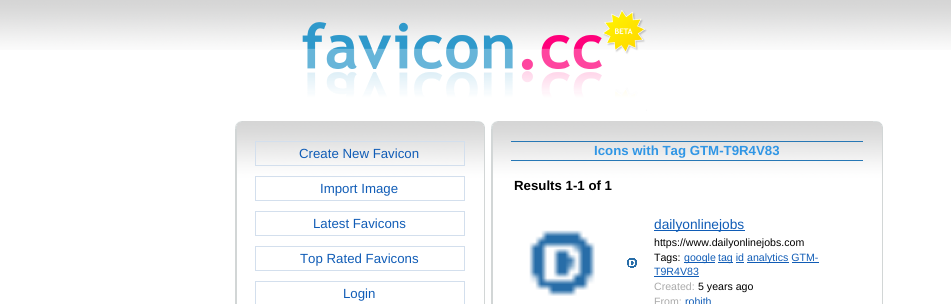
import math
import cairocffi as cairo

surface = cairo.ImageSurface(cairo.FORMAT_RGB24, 951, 304)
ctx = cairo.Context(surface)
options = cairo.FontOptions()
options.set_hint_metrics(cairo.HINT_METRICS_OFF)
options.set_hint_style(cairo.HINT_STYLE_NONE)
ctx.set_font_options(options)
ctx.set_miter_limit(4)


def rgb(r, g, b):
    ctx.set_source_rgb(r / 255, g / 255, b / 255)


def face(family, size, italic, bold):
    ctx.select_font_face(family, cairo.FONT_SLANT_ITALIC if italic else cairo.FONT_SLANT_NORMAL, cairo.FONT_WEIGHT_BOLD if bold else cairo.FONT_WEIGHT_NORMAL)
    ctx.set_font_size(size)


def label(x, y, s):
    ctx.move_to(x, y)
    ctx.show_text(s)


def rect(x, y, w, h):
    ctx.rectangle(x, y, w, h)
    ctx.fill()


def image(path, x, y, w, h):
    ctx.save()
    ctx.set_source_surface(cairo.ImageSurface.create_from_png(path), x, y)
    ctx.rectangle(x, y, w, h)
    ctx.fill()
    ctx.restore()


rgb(255, 255, 255)
ctx.paint()
image('image0.png', 0, 0, 951, 50)
image('image1.png', 302, 10, 345, 101)
image('image2.png', 237, 121, 247, 183)
rgb(210, 214, 214)
rect(235, 125, 2, 179)
rect(484, 125, 1, 179)
image('image3.png', 235, 121, 8, 8)
image('image4.png', 475, 121, 10, 6)
ctx.rectangle(255.5, 141.5, 209, 24)
rgb(211, 223, 237)
ctx.set_line_width(1)
ctx.stroke()
face('Liberation Sans', 13.25, 0, 0)
rgb(16, 92, 182)
label(299, 158, 'Create New Favicon')
ctx.rectangle(255.5, 176.5, 209, 24)
rgb(211, 223, 237)
ctx.stroke()
rgb(16, 92, 182)
label(320, 193, 'Import Image')
ctx.rectangle(255.5, 211.5, 209, 24)
rgb(211, 223, 237)
ctx.stroke()
rgb(16, 92, 182)
label(313, 228, 'Latest Favicons')
ctx.rectangle(255.5, 246.5, 209, 24)
rgb(211, 223, 237)
ctx.stroke()
rgb(16, 92, 182)
label(300, 263, 'Top Rated Favicons')
ctx.rectangle(255.5, 281.5, 209, 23)
rgb(211, 223, 237)
ctx.stroke()
rgb(16, 92, 182)
label(343, 298, 'Login')
image('image5.png', 493, 121, 389, 183)
rgb(210, 214, 214)
rect(491, 125, 2, 179)
rect(882, 125, 1, 179)
image('image6.png', 491, 121, 8, 8)
image('image7.png', 873, 121, 10, 6)
rgb(38, 119, 181)
rect(511, 141, 352, 1)
rect(511, 160, 352, 1)
face('Liberation Sans', 13.25, 0, 1)
rgb(48, 150, 229)
label(594, 155, 'Icons with Tag GTM-T9R4V83')
rgb(0, 0, 0)
label(514, 190, 'Results 1-1 of 1')
image('image8.png', 529, 230, 66, 66)
image('image9.png', 627, 258, 10, 10)
rgb(16, 92, 182)
rect(654, 230, 91, 1)
face('Liberation Sans', 13.75, 0, 0)
label(654, 229, 'dailyonlinejobs')
face('Liberation Sans', 10.6, 0, 0)
rgb(0, 0, 0)
label(654, 246, 'https://www.dailyonlinejobs.com')
label(654, 261, 'Tags:')
rgb(16, 92, 182)
rect(684, 262, 31, 1)
label(684, 261, 'google')
rect(718, 262, 15, 1)
label(718, 261, 'tag id')
rect(747, 262, 42, 1)
label(747, 261, 'analytics GTM-')
rect(736, 262, 8, 1)
label(654, 275, 'T9R4V83')
rect(792, 262, 27, 1)
rect(654, 276, 45, 1)
rgb(170, 170, 170)
label(654, 290, 'Created:')
rgb(0, 0, 0)
label(698, 290, '5 years ago')
rgb(170, 170, 170)
label(654, 305, 'From:')
rgb(16, 92, 182)
label(685, 305, 'rohith')
surface.write_to_png('render.png')
